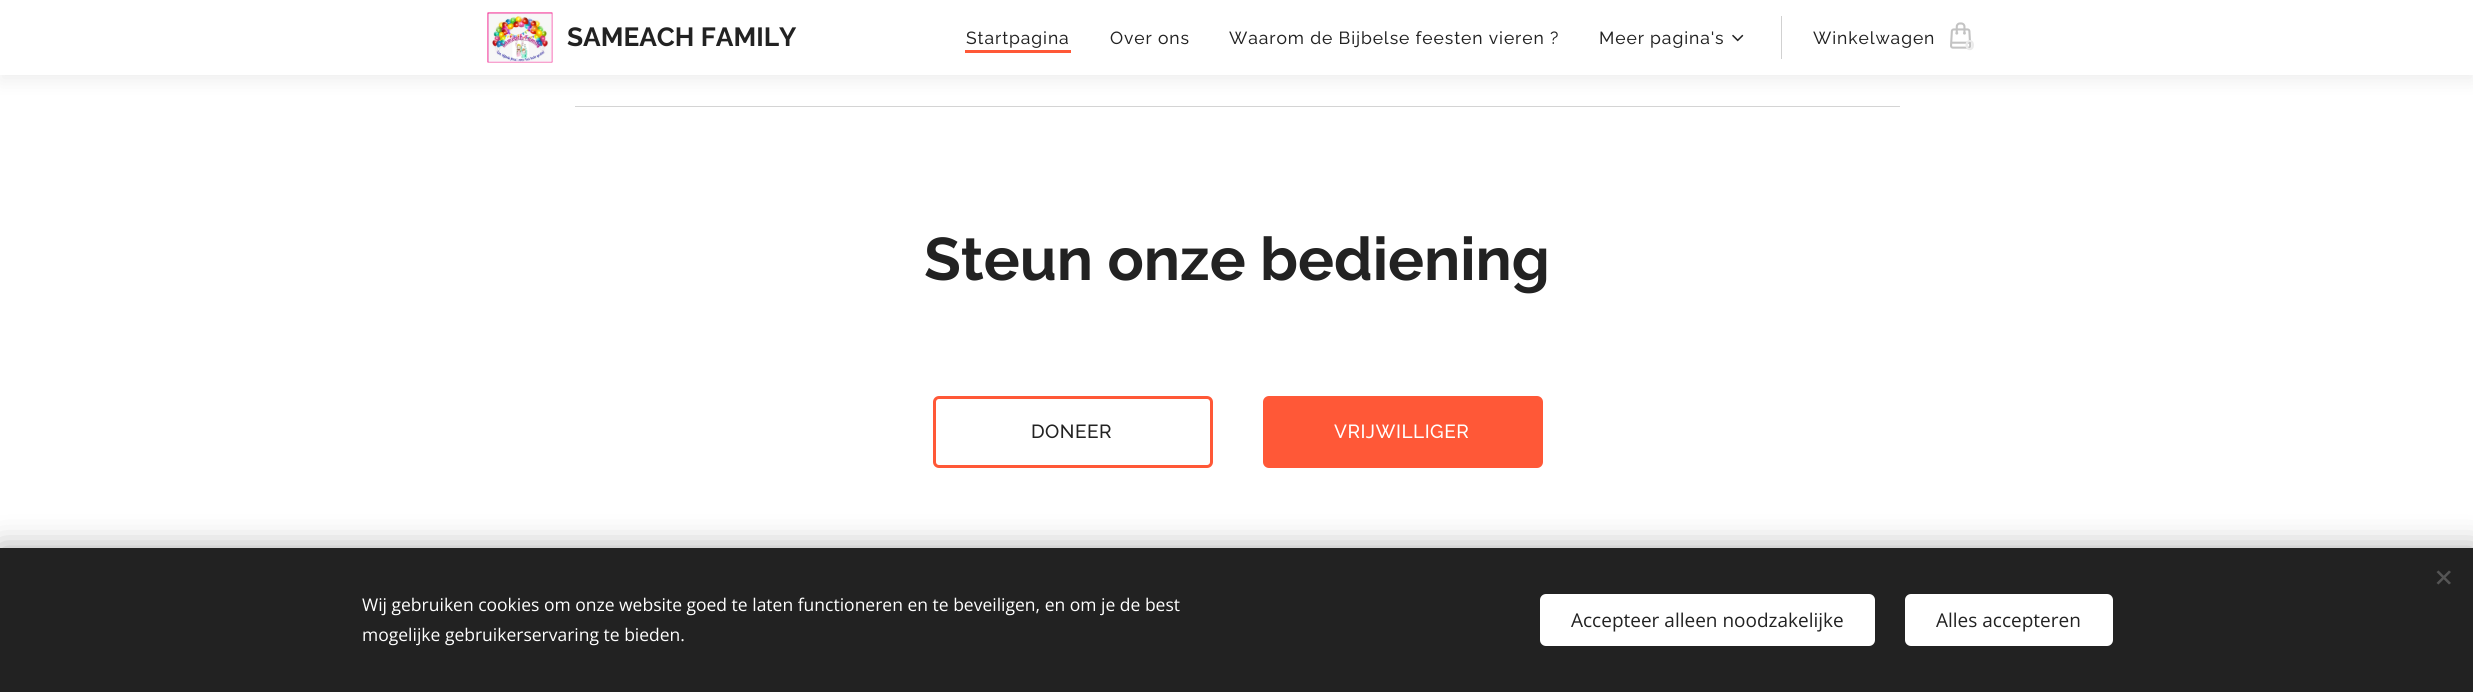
import math
import cairocffi as cairo

surface = cairo.ImageSurface(cairo.FORMAT_RGB24, 2473, 692)
ctx = cairo.Context(surface)
options = cairo.FontOptions()
options.set_hint_metrics(cairo.HINT_METRICS_OFF)
options.set_hint_style(cairo.HINT_STYLE_NONE)
ctx.set_font_options(options)
ctx.set_miter_limit(4)


def rgb(r, g, b):
    ctx.set_source_rgb(r / 255, g / 255, b / 255)


def face(family, size, italic, bold):
    ctx.select_font_face(family, cairo.FONT_SLANT_ITALIC if italic else cairo.FONT_SLANT_NORMAL, cairo.FONT_WEIGHT_BOLD if bold else cairo.FONT_WEIGHT_NORMAL)
    ctx.set_font_size(size)


def label(x, y, s):
    ctx.move_to(x, y)
    ctx.show_text(s)


def tracked(x, y, s, letter, word):
    ctx.move_to(x, y)
    for ch in s:
        ctx.show_text(ch)
        ctx.rel_move_to(letter + word * (ch == ' '), 0)


def rect(x, y, w, h):
    ctx.rectangle(x, y, w, h)
    ctx.fill()


def rrect(x, y, w, h, r):
    ctx.new_sub_path()
    for i, (u, v) in enumerate([(x + w - r, y + h - r), (x + r, y + h - r), (x + r, y + r), (x + w - r, y + r)]):
        ctx.arc(u, v, r, i * math.pi / 2, (i + 1) * math.pi / 2)
    ctx.close_path()


def soft_shadow(x, y, w, h, r, blur, alpha):
    ctx.push_group_with_content(cairo.CONTENT_ALPHA)
    ctx.set_operator(cairo.OPERATOR_SOURCE)
    for i in range(15, -16, -2):
        e = blur * i / 6
        if min(w, h) + 2 * e > 0:
            ctx.set_source_rgba(0, 0, 0, alpha * math.erfc((i - 1) / 8.5) / 2)
            rrect(x - e, y - e, w + 2 * e, h + 2 * e, max(0, min(r + e + blur * .6, min(w, h) / 2 + e)))
            ctx.fill()
    ctx.mask(ctx.pop_group())


def image(path, x, y, w, h):
    ctx.save()
    ctx.set_source_surface(cairo.ImageSurface.create_from_png(path), x, y)
    ctx.rectangle(x, y, w, h)
    ctx.fill()
    ctx.restore()


rgb(255, 255, 255)
ctx.paint()
rgb(212, 212, 212)
rect(575, 106, 1325, 1)
rgb(0, 0, 0)
soft_shadow(0, 6, 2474, 75, 0, 9.5, 0.07)
rgb(255, 255, 255)
rect(0, 0, 2473, 75)
image('image0.png', 487, 12, 66, 51)
face('Raleway', 26.25, 0, 1)
rgb(34, 34, 34)
label(567, 46, 'SAMEACH FAMILY')
face('Raleway', 17.5, 0, 0)
tracked(966, 44, 'Startpagina', 0.9, 0)
rgb(255, 88, 55)
rect(965, 50, 106, 3)
rgb(34, 34, 34)
tracked(1110, 44, 'Over ons', 0.9, 0)
tracked(1229, 44, 'Waarom de Bijbelse feesten vieren ?', 0.9, 0)
tracked(1599, 44, 'Meer pagina\'s', 0.9, 0)
image('image1.png', 1732, 34, 12, 8)
rgb(209, 209, 209)
rect(1781, 16, 1, 43)
rgb(34, 34, 34)
tracked(1813, 44, 'Winkelwagen', 0.9, 0)
image('image2.png', 1950, 22, 22, 27)
face('Montserrat', 14, 0, 1)
rgb(235, 235, 235)
label(1965, 50, '0')
face('Raleway', 60, 0, 1)
rgb(34, 34, 34)
label(924, 280, 'Steun onze bediening')
rrect(934.5, 397.5, 277, 69, 4.5)
rgb(255, 88, 55)
ctx.set_line_width(3)
ctx.stroke()
face('Raleway Medium', 19, 0, 0)
rgb(34, 34, 34)
tracked(1031, 438, 'DONEER', 0.5, 0)
rgb(255, 88, 55)
rrect(1264.5, 397.5, 277, 69, 4.5)
ctx.fill_preserve()
ctx.stroke()
rgb(255, 255, 255)
tracked(1334, 438, 'VRIJWILLIGER', 0.5, 0)
rgb(0, 0, 0)
soft_shadow(0, 548, 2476, 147, 0, 15.5, 0.33)
rgb(34, 34, 34)
rect(0, 548, 2473, 144)
rgb(85, 85, 85)
ctx.new_path()
ctx.move_to(2436.5, 583)
ctx.line_to(2449, 570.5)
ctx.line_to(2451, 572)
ctx.line_to(2438.5, 584.5)
ctx.close_path()
ctx.fill()
ctx.new_path()
ctx.move_to(2438.5, 570.5)
ctx.line_to(2451, 583)
ctx.line_to(2449, 584.5)
ctx.line_to(2436.5, 572)
ctx.close_path()
ctx.fill()
face('Open Sans', 17.5, 0, 0)
rgb(255, 255, 255)
label(362, 611, 'Wij gebruiken cookies om onze website goed te laten functioneren en te beveiligen, en om je de best')
label(362, 641, 'mogelijke gebruikerservaring te bieden.')
rrect(1540, 594, 335, 52, 6)
ctx.fill()
face('Open Sans', 19, 0, 0)
rgb(34, 34, 34)
label(1571, 627, 'Accepteer alleen noodzakelijke')
rgb(255, 255, 255)
rrect(1905, 594, 208, 52, 6)
ctx.fill()
rgb(34, 34, 34)
label(1936, 627, 'Alles accepteren')
surface.write_to_png('render.png')
